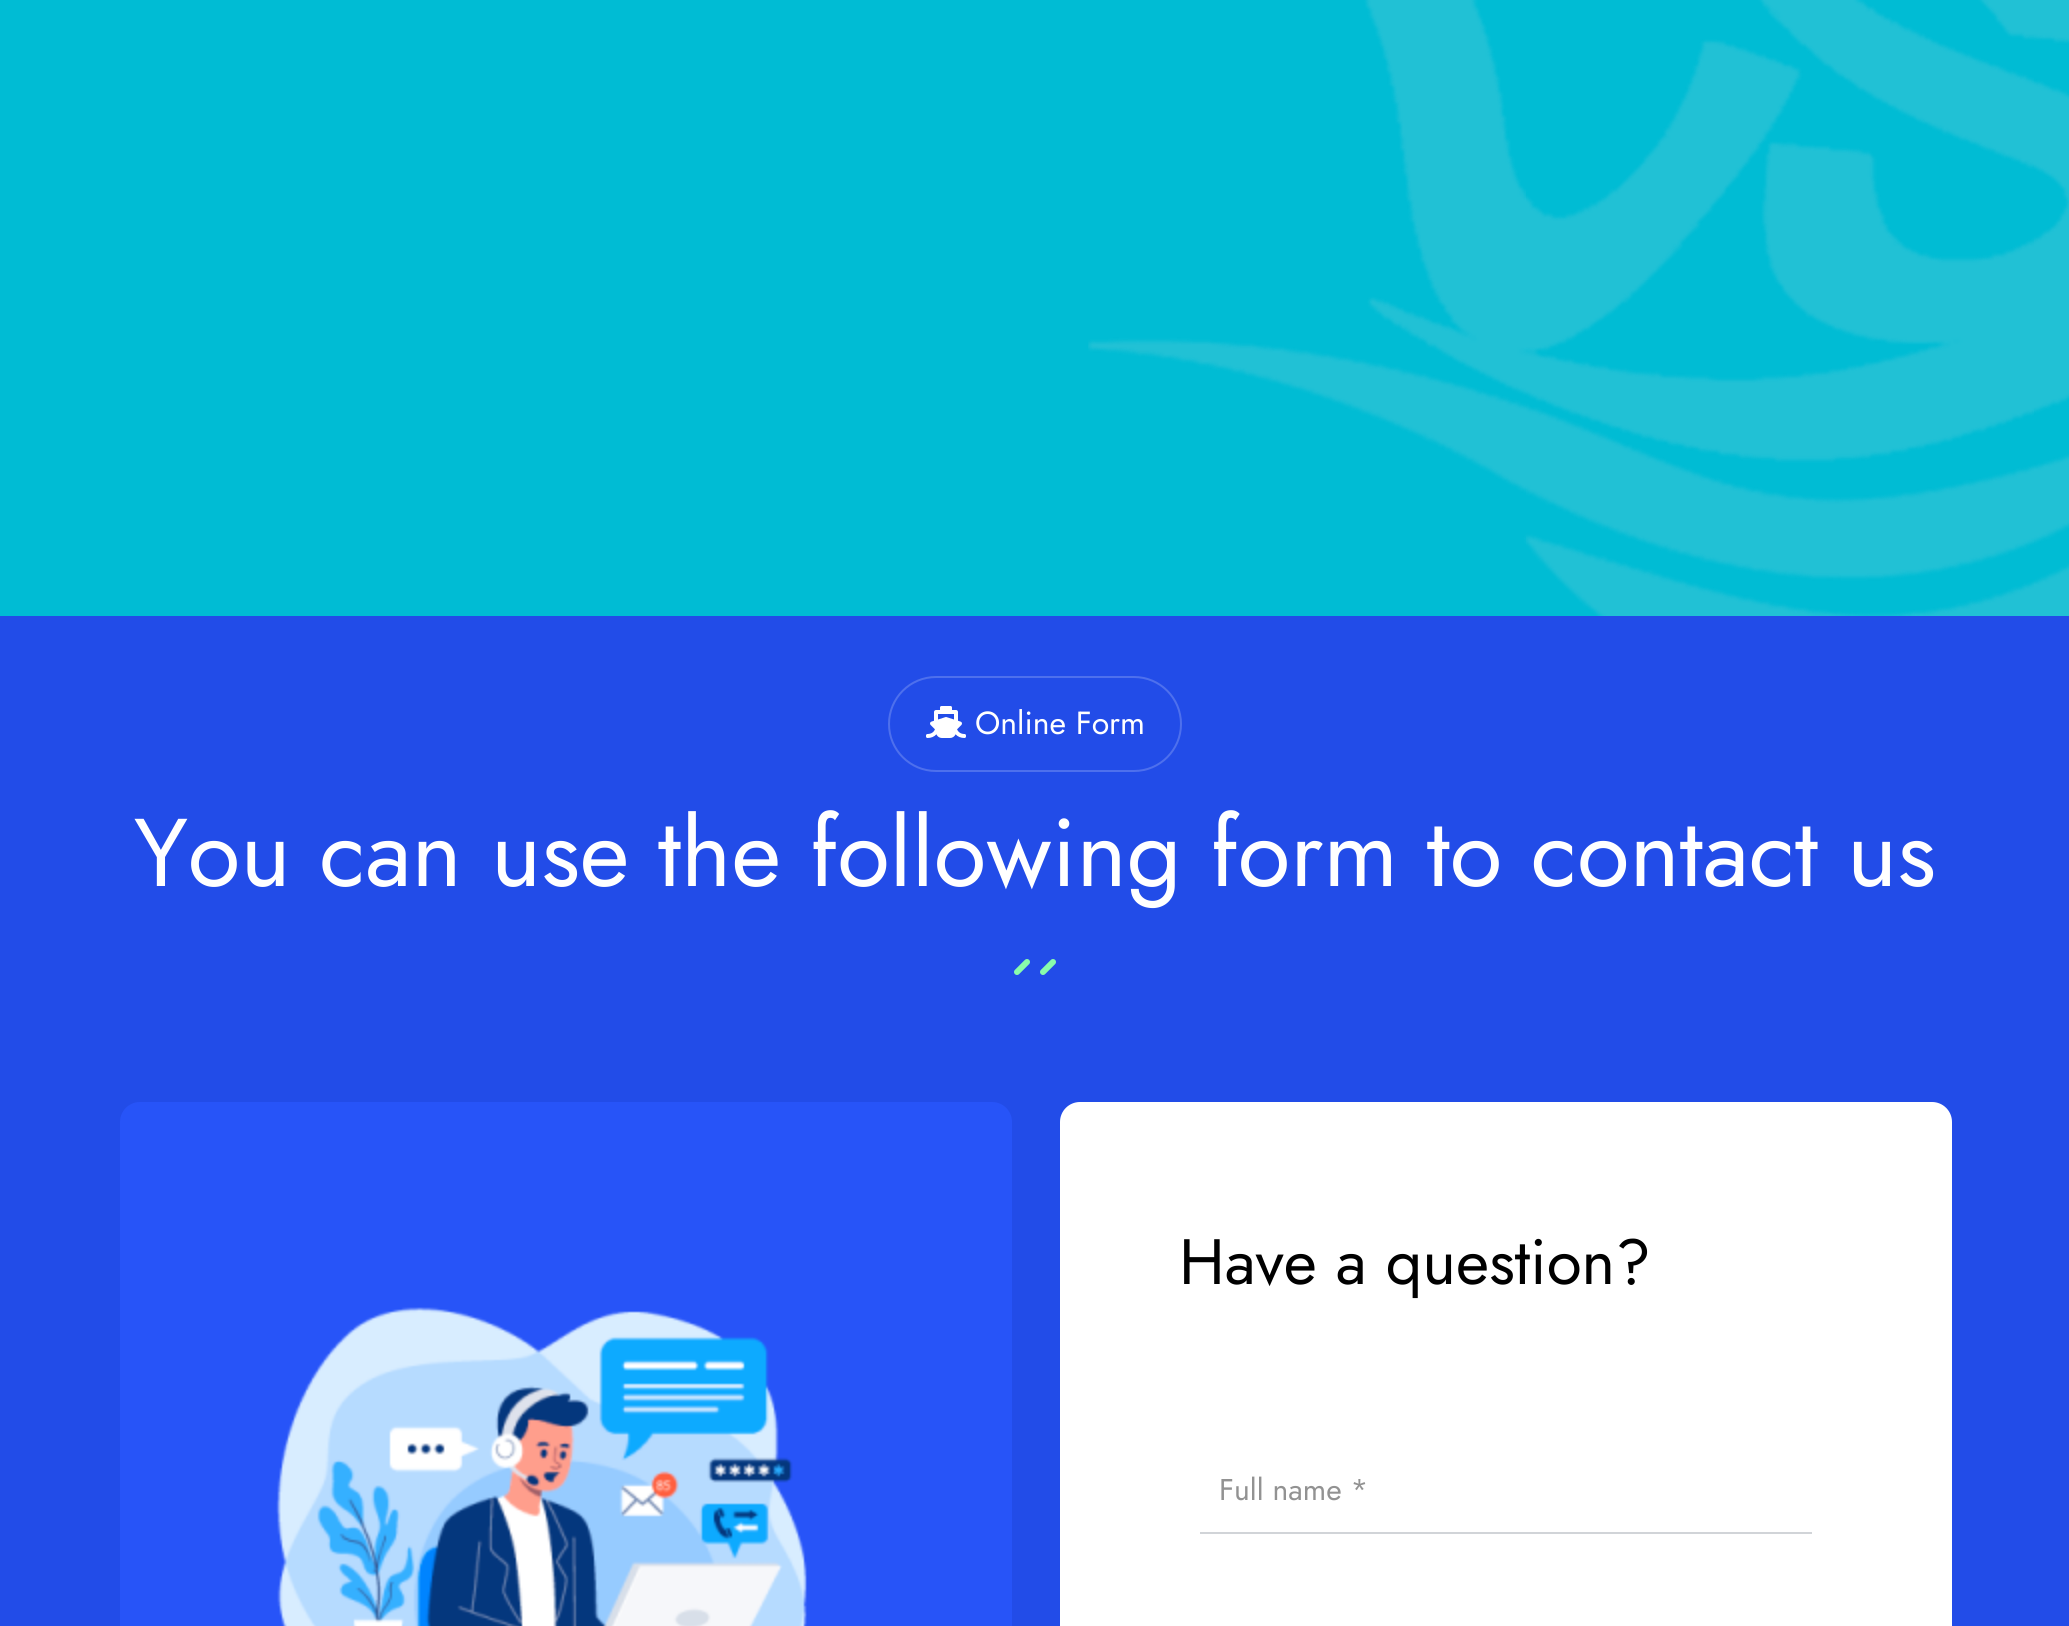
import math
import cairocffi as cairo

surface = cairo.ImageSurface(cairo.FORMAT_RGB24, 2069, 1626)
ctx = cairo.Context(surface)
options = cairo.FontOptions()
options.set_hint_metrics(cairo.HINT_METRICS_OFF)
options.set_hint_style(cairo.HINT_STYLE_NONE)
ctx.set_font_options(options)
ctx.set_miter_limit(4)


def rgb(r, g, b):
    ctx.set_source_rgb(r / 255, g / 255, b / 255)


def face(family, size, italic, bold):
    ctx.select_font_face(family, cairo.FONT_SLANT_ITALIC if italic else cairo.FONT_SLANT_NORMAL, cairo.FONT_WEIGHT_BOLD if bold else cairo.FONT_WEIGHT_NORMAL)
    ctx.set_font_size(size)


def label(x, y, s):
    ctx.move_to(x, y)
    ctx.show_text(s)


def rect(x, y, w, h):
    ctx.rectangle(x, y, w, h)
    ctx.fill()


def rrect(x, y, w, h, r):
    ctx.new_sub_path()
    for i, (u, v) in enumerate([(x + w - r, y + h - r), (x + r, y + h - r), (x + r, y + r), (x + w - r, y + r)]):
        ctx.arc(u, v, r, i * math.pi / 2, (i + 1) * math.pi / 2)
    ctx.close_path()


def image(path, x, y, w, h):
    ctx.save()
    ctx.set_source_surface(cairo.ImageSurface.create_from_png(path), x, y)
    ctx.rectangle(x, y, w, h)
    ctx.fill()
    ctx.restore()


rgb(34, 76, 232)
ctx.paint()
rgb(0, 188, 212)
rect(0, 0, 2069, 616)
image('image0.png', 1088, 0, 981, 616)
rrect(889, 677, 292, 94, 47)
rgb(78, 112, 237)
ctx.stroke()
image('image1.png', 926, 706, 40, 32)
face('Jost', 32, 0, 0)
rgb(255, 255, 255)
label(975, 734, 'Online Form')
face('Jost', 96, 0, 0)
label(134, 886, 'You can use the following form to contact us')
ctx.new_path()
ctx.move_to(1027, 962)
ctx.line_to(1017, 972)
ctx.move_to(1053, 962)
ctx.line_to(1043, 972)
rgb(136, 252, 171)
ctx.set_line_width(6)
ctx.set_line_cap(cairo.LINE_CAP_ROUND)
ctx.stroke()
rgb(39, 84, 248)
rrect(120, 1102, 892, 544, 20)
ctx.fill()
image('image2.png', 276, 1307, 531, 319)
rgb(255, 255, 255)
rrect(1060, 1102, 892, 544, 20)
ctx.fill()
face('Jost', 64, 0, 0)
rgb(0, 0, 0)
label(1179, 1284, 'Have a question?')
rgb(209, 212, 216)
rect(1200, 1532, 612, 2)
face('Jost', 30, 0, 0)
rgb(146, 146, 146)
label(1219, 1500, 'Full name *')
surface.write_to_png('render.png')
